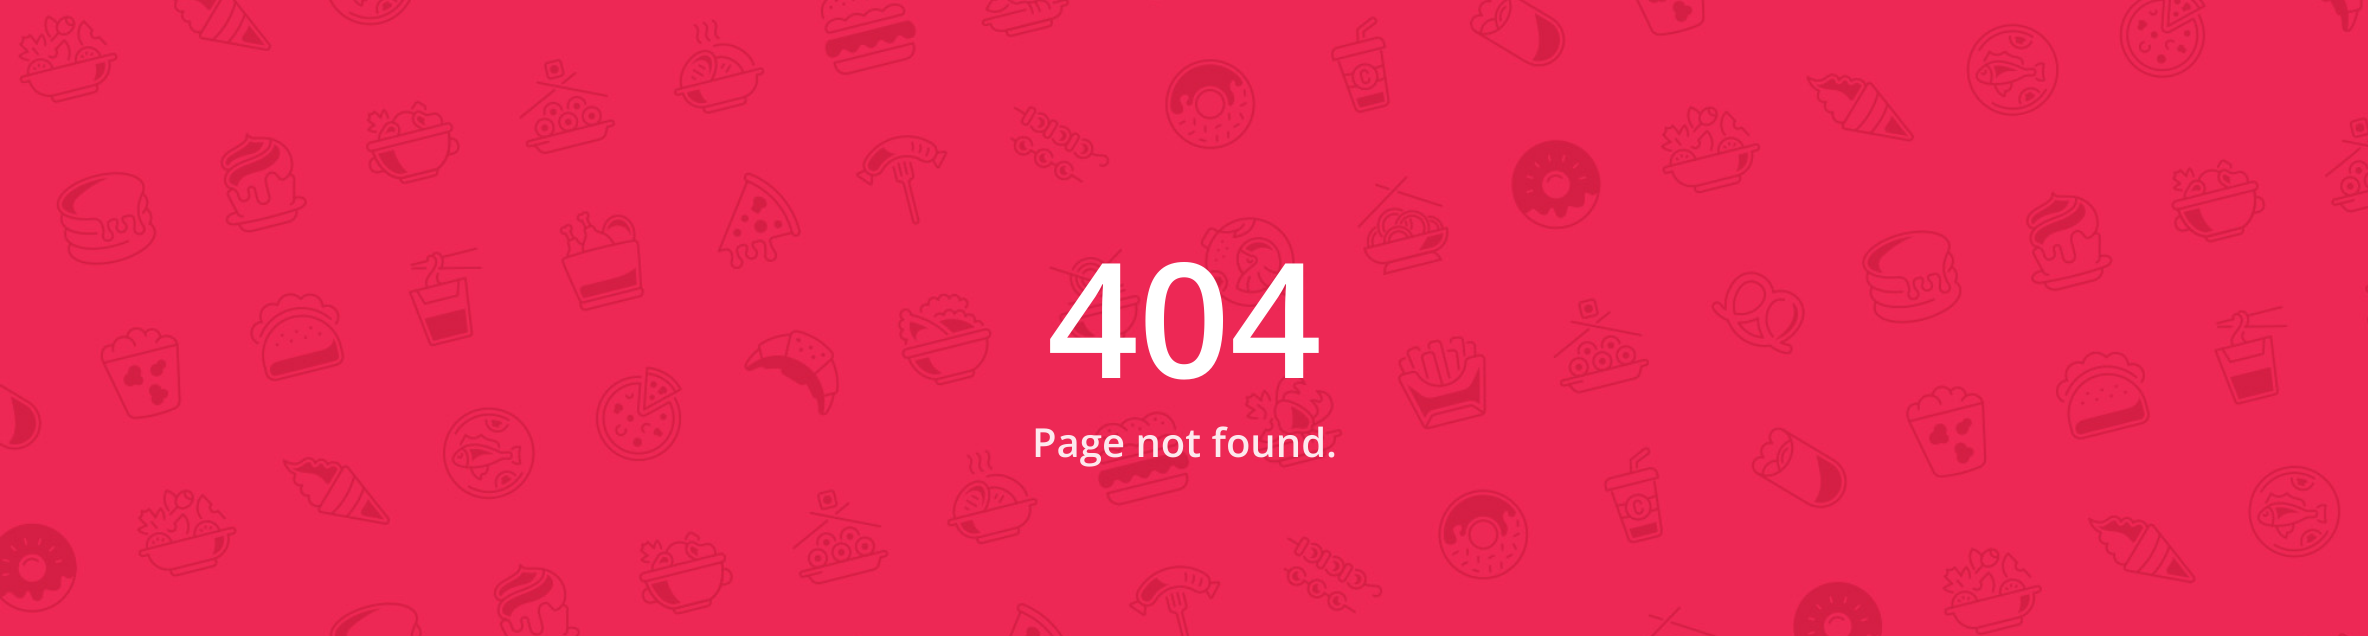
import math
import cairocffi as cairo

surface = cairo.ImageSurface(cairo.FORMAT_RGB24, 2368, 636)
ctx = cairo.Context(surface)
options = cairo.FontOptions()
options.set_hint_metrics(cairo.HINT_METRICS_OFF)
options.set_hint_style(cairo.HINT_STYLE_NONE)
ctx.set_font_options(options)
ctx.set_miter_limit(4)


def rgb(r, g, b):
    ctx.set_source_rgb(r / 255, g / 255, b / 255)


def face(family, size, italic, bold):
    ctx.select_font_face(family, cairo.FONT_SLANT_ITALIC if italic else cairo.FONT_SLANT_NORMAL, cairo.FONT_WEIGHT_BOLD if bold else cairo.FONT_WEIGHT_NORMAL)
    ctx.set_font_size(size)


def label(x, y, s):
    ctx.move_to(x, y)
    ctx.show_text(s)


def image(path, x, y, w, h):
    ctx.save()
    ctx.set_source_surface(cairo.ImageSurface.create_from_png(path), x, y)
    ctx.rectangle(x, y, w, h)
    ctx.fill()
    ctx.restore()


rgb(255, 255, 255)
ctx.paint()
image('image0.png', 0, 0, 2368, 636)
face('Open Sans SemiBold', 160, 0, 0)
rgb(255, 255, 255)
label(1047, 378, '404')
face('Open Sans SemiBold', 40, 0, 0)
rgb(253, 233, 238)
label(1032, 457, 'Page not found.')
surface.write_to_png('render.png')
